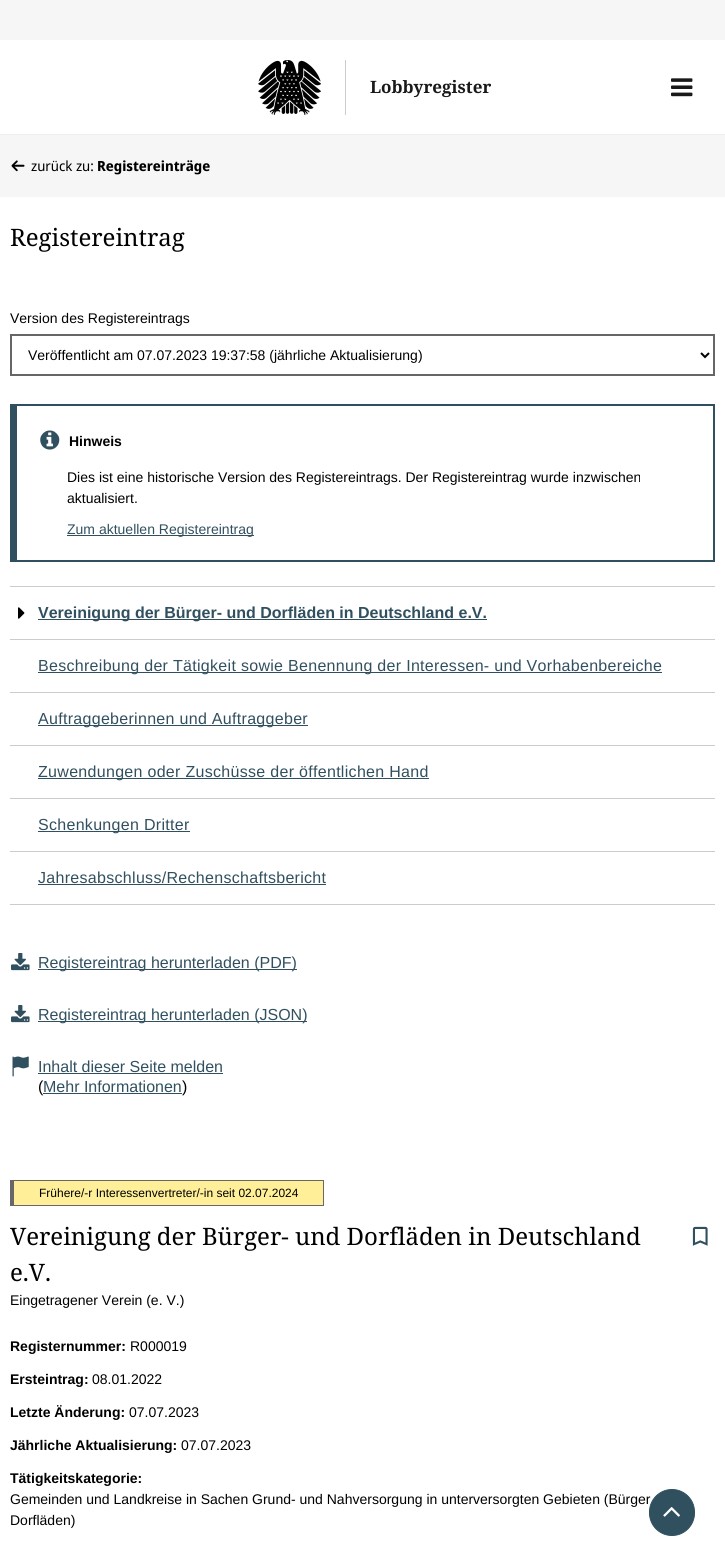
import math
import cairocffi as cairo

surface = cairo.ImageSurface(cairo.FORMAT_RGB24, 725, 1551)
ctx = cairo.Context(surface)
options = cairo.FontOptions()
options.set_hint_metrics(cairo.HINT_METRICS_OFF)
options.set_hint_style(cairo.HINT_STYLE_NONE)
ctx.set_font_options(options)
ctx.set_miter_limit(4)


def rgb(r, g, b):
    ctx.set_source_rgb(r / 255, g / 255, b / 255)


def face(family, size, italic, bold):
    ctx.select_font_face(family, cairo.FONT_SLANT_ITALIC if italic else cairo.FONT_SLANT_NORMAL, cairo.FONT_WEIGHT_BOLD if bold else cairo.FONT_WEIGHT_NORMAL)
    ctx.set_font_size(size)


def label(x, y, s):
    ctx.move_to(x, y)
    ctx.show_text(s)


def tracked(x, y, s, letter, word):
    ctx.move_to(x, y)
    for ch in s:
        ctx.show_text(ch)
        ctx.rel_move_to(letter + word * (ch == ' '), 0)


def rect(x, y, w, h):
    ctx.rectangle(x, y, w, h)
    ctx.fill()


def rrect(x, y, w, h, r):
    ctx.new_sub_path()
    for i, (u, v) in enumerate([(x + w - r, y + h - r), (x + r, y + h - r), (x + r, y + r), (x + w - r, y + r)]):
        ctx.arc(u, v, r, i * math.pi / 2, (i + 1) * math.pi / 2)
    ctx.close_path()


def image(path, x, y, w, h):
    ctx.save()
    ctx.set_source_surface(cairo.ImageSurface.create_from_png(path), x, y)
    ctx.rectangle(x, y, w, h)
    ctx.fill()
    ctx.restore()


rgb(255, 255, 255)
ctx.paint()
rgb(246, 246, 246)
rect(0, 0, 725, 40)
rgb(238, 238, 238)
rect(0, 134, 725, 1)
image('image0.png', 258, 60, 63, 55)
rgb(204, 204, 204)
rect(345, 60, 1, 55)
face('Noto Serif', 17, 0, 1)
rgb(25, 25, 25)
label(370, 93, 'Lobbyregister')
image('image1.png', 671, 78, 22, 19)
rgb(246, 246, 246)
rect(0, 135, 725, 62)
image('image2.png', 11, 160, 14, 12)
face('Noto Sans Display', 14, 0, 0)
rgb(0, 0, 0)
label(31, 171, 'zurück zu:')
face('Noto Sans Display', 14, 0, 1)
label(97, 171, 'Registereinträge')
face('Noto Serif', 24, 0, 0)
label(10, 246, 'Registereintrag')
face('Liberation Sans', 14, 0, 0)
label(10, 323, 'Version des Registereintrags')
ctx.rectangle(11, 335, 703, 40)
rgb(102, 102, 102)
ctx.stroke()
ctx.new_path()
ctx.move_to(701, 353)
ctx.line_to(705, 357)
ctx.line_to(709, 353)
rgb(0, 0, 0)
ctx.stroke()
label(28, 360, 'Veröffentlicht am 07.07.2023 19:37:58 (jährliche Aktualisierung)')
rgb(49, 80, 95)
rect(12, 406, 5, 154)
ctx.rectangle(11, 405, 703, 156)
ctx.stroke()
image('image3.png', 40, 430, 20, 20)
face('Liberation Sans', 14, 0, 1)
rgb(0, 0, 0)
label(69, 446, 'Hinweis')
face('Liberation Sans', 14, 0, 0)
label(67, 482, 'Dies ist eine historische Version des Registereintrags. Der Registereintrag wurde inzwischen')
label(67, 503, 'aktualisiert.')
rgb(49, 80, 95)
rect(67, 535, 187, 1)
label(67, 534, 'Zum aktuellen Registereintrag')
rgb(204, 204, 204)
rect(10, 586, 705, 1)
image('image4.png', 18, 607, 7, 12)
rgb(49, 80, 95)
rect(38, 619, 449, 1)
face('Liberation Sans', 16, 0, 1)
label(38, 618, 'Vereinigung der Bürger- und Dorfläden in Deutschland e.V.')
rgb(204, 204, 204)
rect(10, 639, 705, 1)
rgb(49, 80, 95)
rect(38, 672, 624, 1)
face('Liberation Sans', 16, 0, 0)
tracked(38, 671, 'Beschreibung der Tätigkeit sowie Benennung der Interessen- und Vorhabenbereiche', 0.3, 0)
rgb(204, 204, 204)
rect(10, 692, 705, 1)
rgb(49, 80, 95)
rect(38, 725, 270, 1)
tracked(38, 724, 'Auftraggeberinnen und Auftraggeber', 0.3, 0)
rgb(204, 204, 204)
rect(10, 745, 705, 1)
rgb(49, 80, 95)
rect(38, 778, 391, 1)
tracked(38, 777, 'Zuwendungen oder Zuschüsse der öffentlichen Hand', 0.3, 0)
rgb(204, 204, 204)
rect(10, 798, 705, 1)
rgb(49, 80, 95)
rect(38, 831, 152, 1)
tracked(38, 830, 'Schenkungen Dritter', 0.3, 0)
rgb(204, 204, 204)
rect(10, 851, 705, 1)
rect(10, 904, 705, 1)
rgb(49, 80, 95)
tracked(38, 883, 'Jahresabschluss/Rechenschaftsbericht', 0.3, 0)
rect(38, 884, 288, 1)
image('image5.png', 11, 953, 19, 18)
rect(38, 969, 259, 1)
label(38, 968, 'Registereintrag herunterladen (PDF)')
image('image5.png', 11, 1005, 19, 18)
rect(38, 1021, 269, 1)
label(38, 1020, 'Registereintrag herunterladen (JSON)')
image('image6.png', 12, 1056, 17, 21)
label(38, 1072, 'Inhalt dieser Seite melden')
rect(38, 1073, 185, 1)
rgb(0, 0, 0)
label(38, 1092, '(')
rgb(49, 80, 95)
label(43, 1092, 'Mehr Informationen')
rect(43, 1093, 139, 1)
rgb(0, 0, 0)
label(182, 1092, ')')
rgb(255, 239, 153)
rect(14, 1181, 309, 24)
rgb(104, 104, 104)
rect(10, 1180, 314, 1)
rect(323, 1180, 1, 26)
rect(10, 1205, 314, 1)
rect(10, 1180, 4, 26)
face('Liberation Sans', 12, 0, 0)
rgb(0, 0, 0)
label(39, 1197, 'Frühere/-r Interessenvertreter/-in seit 02.07.2024')
face('Noto Serif', 24, 0, 0)
label(10, 1245, 'Vereinigung der Bürger- und Dorfläden in Deutschland')
label(10, 1281, 'e.V.')
image('image7.png', 692, 1226, 16, 20)
face('Liberation Sans', 14, 0, 0)
label(10, 1305, 'Eingetragener Verein (e. V.)')
face('Liberation Sans', 14, 0, 1)
label(10, 1351, 'Registernummer:')
face('Liberation Sans', 14, 0, 0)
label(130, 1351, 'R000019')
face('Liberation Sans', 14, 0, 1)
label(10, 1384, 'Ersteintrag:')
face('Liberation Sans', 14, 0, 0)
label(92, 1384, '08.01.2022')
face('Liberation Sans', 14, 0, 1)
label(10, 1417, 'Letzte Änderung:')
face('Liberation Sans', 14, 0, 0)
label(129, 1417, '07.07.2023')
face('Liberation Sans', 14, 0, 1)
label(10, 1450, 'Jährliche Aktualisierung:')
face('Liberation Sans', 14, 0, 0)
label(181, 1450, '07.07.2023')
face('Liberation Sans', 14, 0, 1)
label(10, 1483, 'Tätigkeitskategorie:')
face('Liberation Sans', 14, 0, 0)
label(10, 1504, 'Gemeinden und Landkreise in Sachen Grund- und Nahversorgung in unterversorgten Gebieten (Bürger')
label(10, 1525, 'Dorfläden)')
rgb(49, 80, 95)
rrect(649.5, 1489.5, 45, 46, 22.5)
ctx.fill_preserve()
ctx.set_line_width(1)
ctx.stroke()
image('image8.png', 663, 1507, 17, 10)
surface.write_to_png('render.png')
